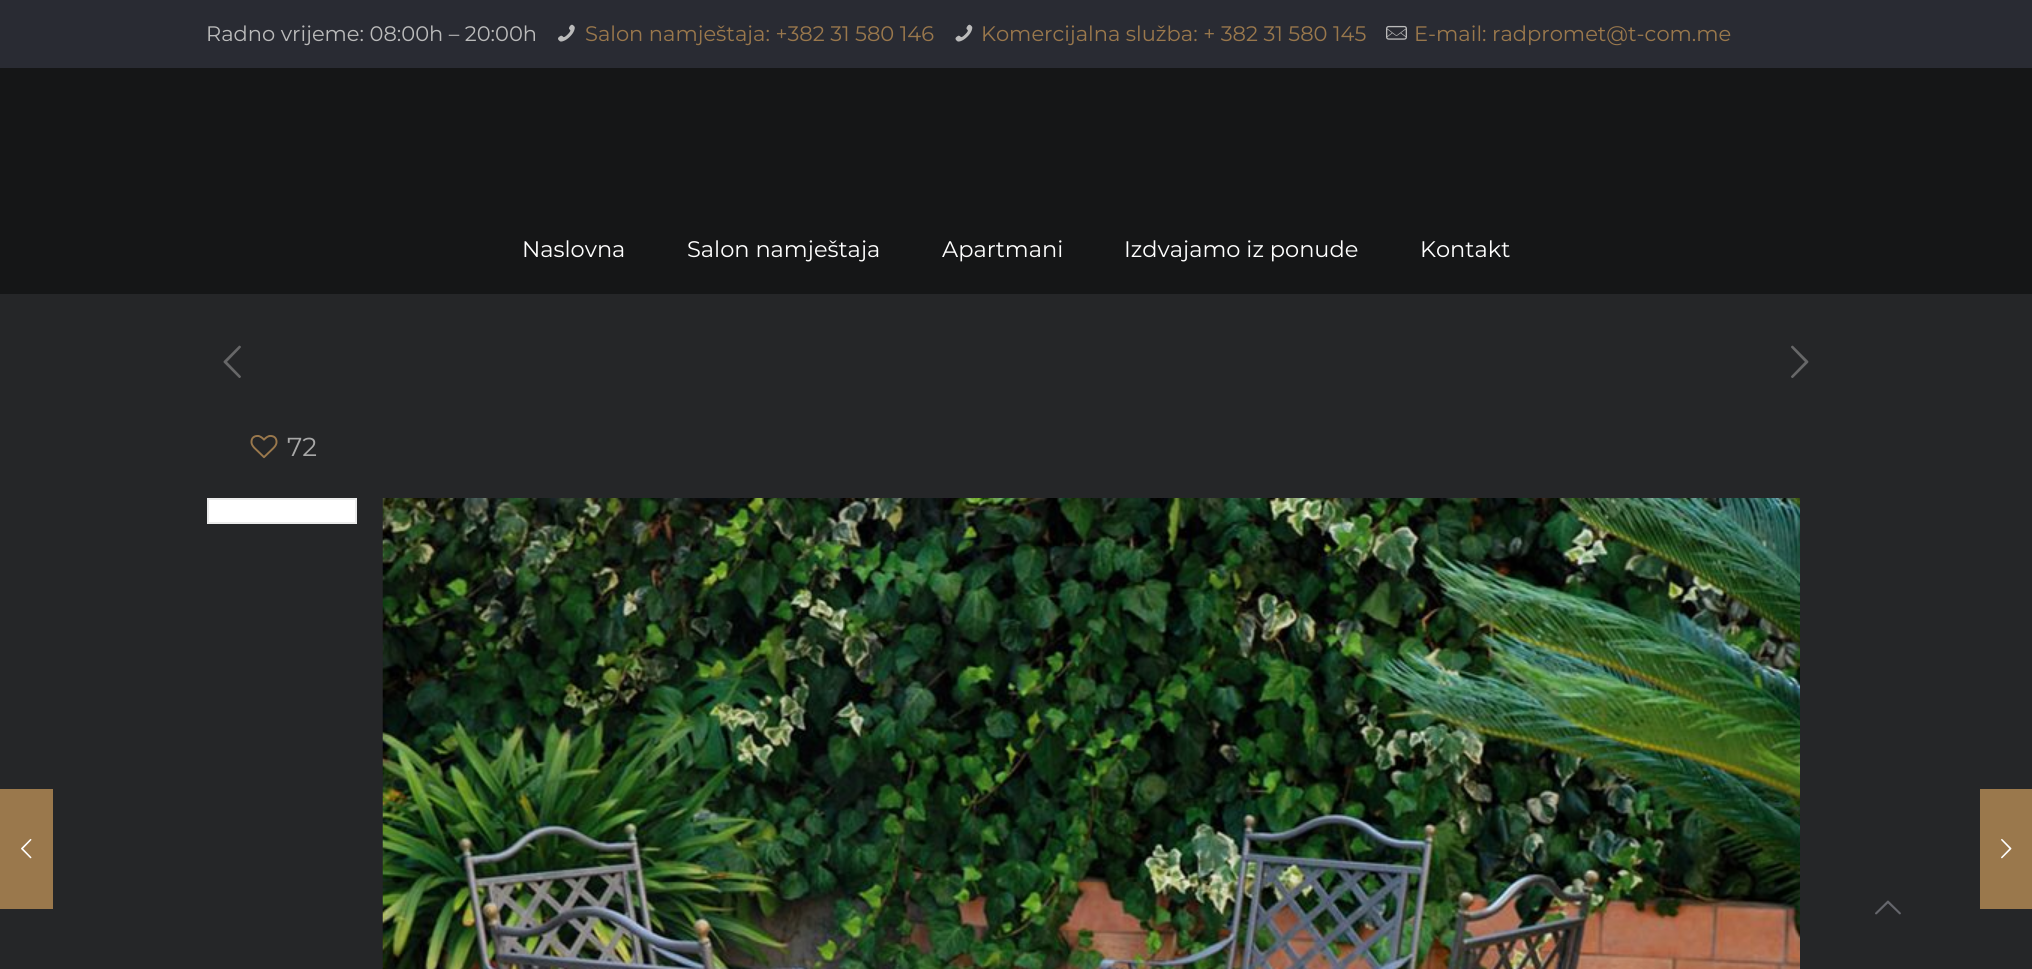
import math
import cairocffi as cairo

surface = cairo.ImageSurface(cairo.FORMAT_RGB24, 2032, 969)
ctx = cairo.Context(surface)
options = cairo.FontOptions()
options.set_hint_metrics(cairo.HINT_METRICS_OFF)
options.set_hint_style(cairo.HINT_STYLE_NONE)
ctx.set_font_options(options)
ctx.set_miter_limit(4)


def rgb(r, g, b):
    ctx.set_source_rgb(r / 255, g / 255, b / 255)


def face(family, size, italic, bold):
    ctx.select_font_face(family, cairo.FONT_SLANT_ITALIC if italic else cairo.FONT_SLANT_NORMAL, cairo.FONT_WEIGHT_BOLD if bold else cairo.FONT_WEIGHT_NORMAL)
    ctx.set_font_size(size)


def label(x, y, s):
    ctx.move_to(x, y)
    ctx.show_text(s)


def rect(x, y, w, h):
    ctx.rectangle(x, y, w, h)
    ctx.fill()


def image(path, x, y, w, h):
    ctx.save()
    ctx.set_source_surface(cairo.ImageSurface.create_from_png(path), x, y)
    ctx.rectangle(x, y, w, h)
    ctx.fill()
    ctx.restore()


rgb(37, 38, 40)
ctx.paint()
rgb(21, 22, 23)
rect(0, 68, 2032, 226)
rgb(41, 43, 51)
rect(0, 0, 2032, 68)
face('Montserrat', 21, 0, 0)
rgb(187, 187, 187)
label(206, 41, 'Radno vrijeme: 08:00h – 20:00h')
image('image0.png', 558, 24, 17, 18)
rgb(154, 120, 76)
label(585, 41, 'Salon namještaja: +382 31 580 146')
image('image1.png', 955, 24, 18, 18)
label(981, 41, 'Komercijalna služba: + 382 31 580 145')
image('image2.png', 1386, 25, 21, 15)
label(1414, 41, 'E-mail: radpromet@t-com.me')
face('Montserrat', 22.5, 0, 0)
rgb(255, 255, 255)
label(522, 257, 'Naslovna')
label(687, 257, 'Salon namještaja')
label(942, 257, 'Apartmani')
label(1124, 257, 'Izdvajamo iz ponude')
label(1420, 257, 'Kontakt')
image('image3.png', 223, 345, 18, 33)
image('image4.png', 1791, 345, 18, 33)
image('image5.png', 250, 435, 28, 24)
face('Montserrat', 26, 0, 0)
rgb(168, 168, 168)
label(287, 456, '72')
rgb(255, 255, 255)
ctx.rectangle(208, 499, 148, 24)
ctx.fill_preserve()
rgb(235, 235, 235)
ctx.stroke()
image('image6.png', 382, 498, 1418, 471)
rgb(154, 120, 76)
rect(0, 789, 53, 120)
image('image7.png', 21, 838, 11, 21)
image('image8.png', 1875, 900, 26, 15)
rect(1980, 789, 52, 120)
image('image9.png', 2001, 838, 11, 21)
surface.write_to_png('render.png')
